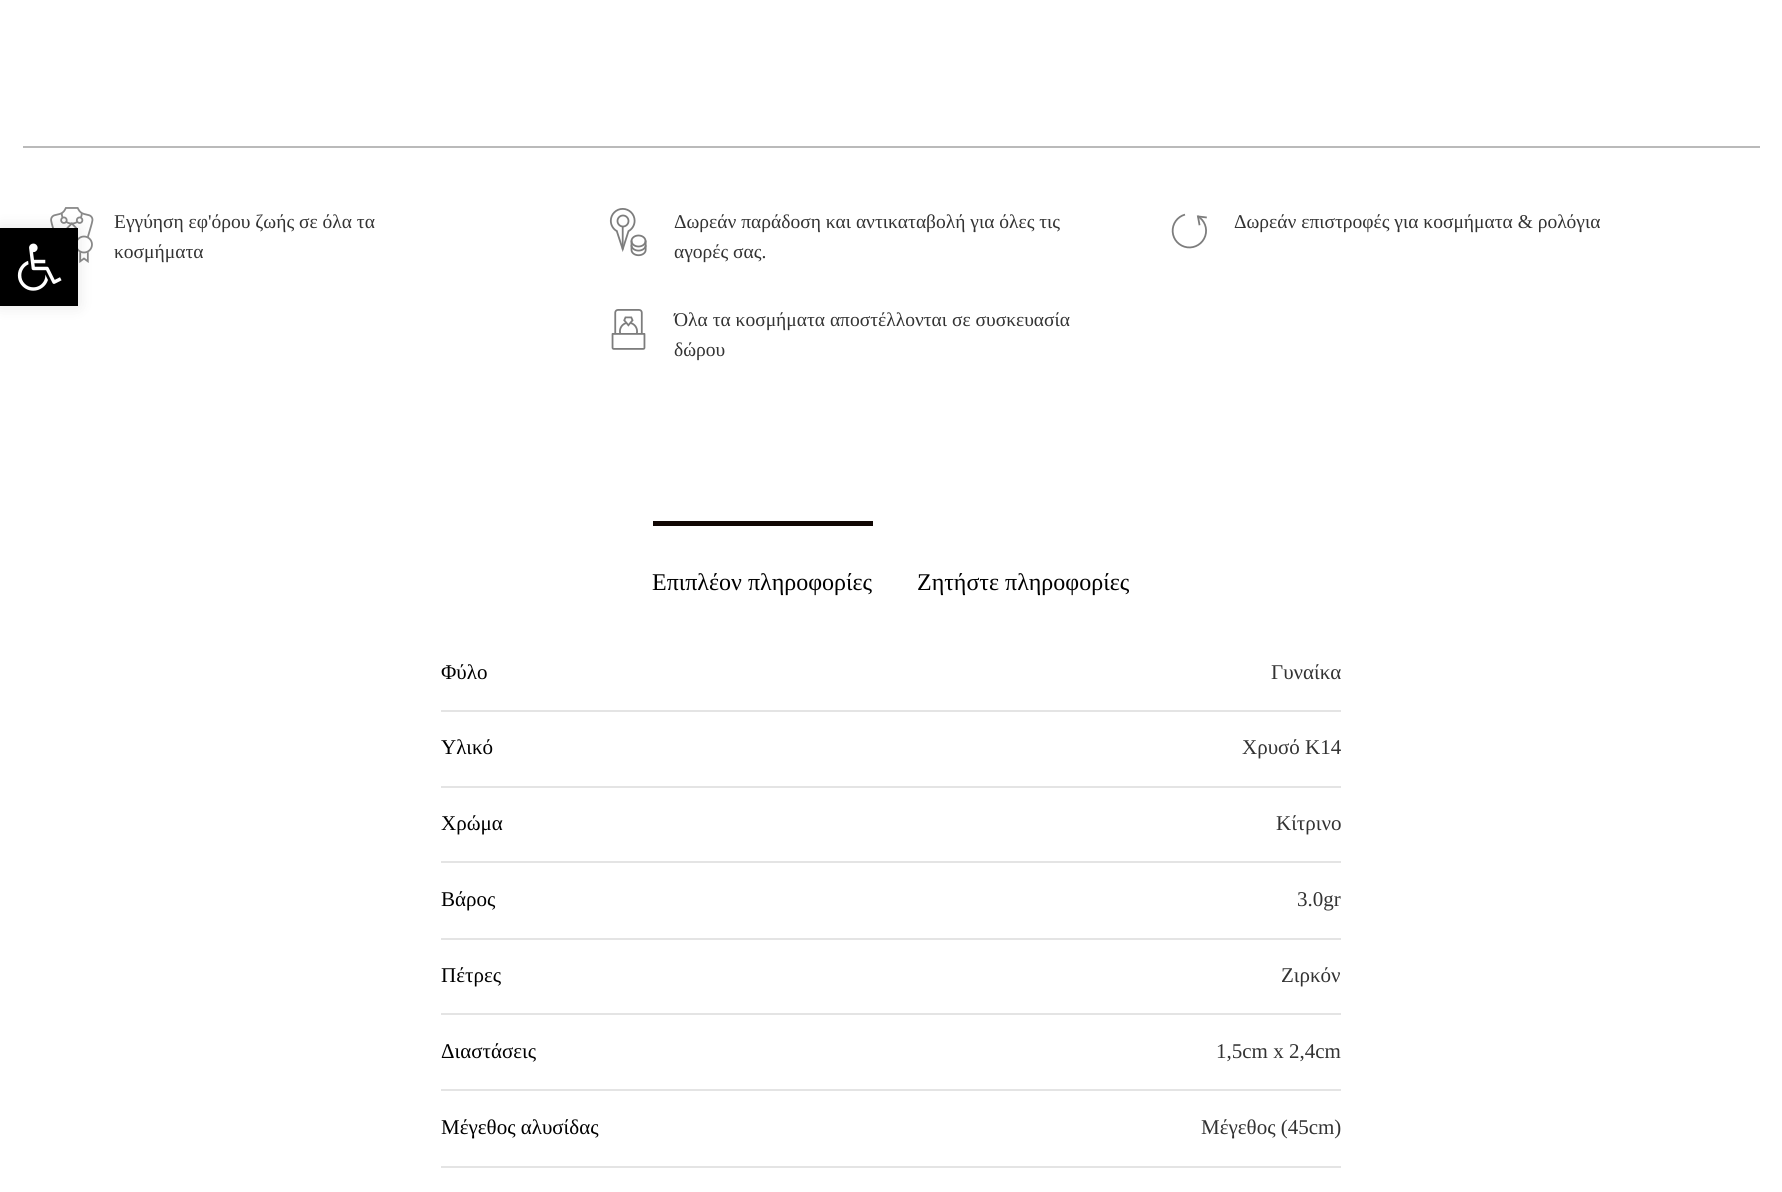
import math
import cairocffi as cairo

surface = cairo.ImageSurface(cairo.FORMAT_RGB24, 1782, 1192)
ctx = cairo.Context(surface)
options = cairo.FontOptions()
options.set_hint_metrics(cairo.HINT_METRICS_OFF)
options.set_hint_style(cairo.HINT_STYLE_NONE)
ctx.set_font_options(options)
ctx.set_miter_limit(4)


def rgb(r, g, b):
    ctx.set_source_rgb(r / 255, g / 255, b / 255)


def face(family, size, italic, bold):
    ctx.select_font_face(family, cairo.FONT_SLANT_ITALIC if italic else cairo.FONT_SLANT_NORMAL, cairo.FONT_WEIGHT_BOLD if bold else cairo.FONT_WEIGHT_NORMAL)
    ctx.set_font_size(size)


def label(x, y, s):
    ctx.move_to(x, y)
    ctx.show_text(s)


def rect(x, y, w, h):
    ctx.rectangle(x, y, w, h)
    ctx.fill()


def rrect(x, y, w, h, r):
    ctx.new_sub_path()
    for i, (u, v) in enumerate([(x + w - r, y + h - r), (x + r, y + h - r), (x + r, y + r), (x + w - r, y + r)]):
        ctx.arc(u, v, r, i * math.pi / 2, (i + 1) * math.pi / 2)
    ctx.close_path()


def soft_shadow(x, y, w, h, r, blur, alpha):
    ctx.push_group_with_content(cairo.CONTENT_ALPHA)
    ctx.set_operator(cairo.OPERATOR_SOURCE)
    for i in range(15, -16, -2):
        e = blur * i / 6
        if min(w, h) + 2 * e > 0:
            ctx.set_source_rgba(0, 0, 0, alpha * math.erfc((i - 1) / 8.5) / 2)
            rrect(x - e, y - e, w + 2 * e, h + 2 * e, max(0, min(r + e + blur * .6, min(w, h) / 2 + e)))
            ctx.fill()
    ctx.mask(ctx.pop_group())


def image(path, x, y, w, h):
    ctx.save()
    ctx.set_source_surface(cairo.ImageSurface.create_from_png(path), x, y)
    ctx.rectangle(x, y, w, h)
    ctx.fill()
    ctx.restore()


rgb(255, 255, 255)
ctx.paint()
image('image1.png', 50, 207, 44, 56)
rgb(0, 0, 0)
soft_shadow(0, 228, 78, 78, 0, 7.5, 0.1)
rgb(0, 0, 0)
rect(0, 228, 78, 78)
image('image0.png', 17, 243, 45, 48)
rgb(186, 186, 186)
rect(23, 146, 1737, 2)
face('Liberation Serif', 19.5, 0, 0)
rgb(51, 51, 51)
label(114, 228, 'Εγγύηση εφ\'όρου ζωής σε όλα τα')
label(114, 258, 'κοσμήματα')
image('image2.png', 609, 208, 38, 49)
label(674, 228, 'Δωρεάν παράδοση και αντικαταβολή για όλες τις')
label(674, 258, 'αγορές σας.')
image('image3.png', 1171, 213, 36, 36)
label(1234, 228, 'Δωρεάν επιστροφές για κοσμήματα & ρολόγια')
image('image4.png', 611, 309, 35, 41)
label(674, 326, 'Όλα τα κοσμήματα αποστέλλονται σε συσκευασία')
label(674, 356, 'δώρου')
rgb(17, 7, 4)
rect(653, 521, 220, 5)
face('Liberation Serif', 24, 0, 0)
rgb(0, 0, 0)
label(652, 590, 'Επιπλέον πληροφορίες')
label(917, 590, 'Ζητήστε πληροφορίες')
rgb(228, 228, 228)
rect(441, 710, 900, 2)
face('Liberation Serif', 21, 0, 0)
rgb(0, 0, 0)
label(441, 679, 'Φύλο')
rgb(51, 51, 51)
label(1271, 679, 'Γυναίκα')
rgb(228, 228, 228)
rect(441, 786, 900, 2)
rgb(0, 0, 0)
label(441, 754, 'Υλικό')
rgb(51, 51, 51)
label(1242, 754, 'Χρυσό Κ14')
rgb(228, 228, 228)
rect(441, 861, 900, 2)
rgb(0, 0, 0)
label(441, 830, 'Χρώμα')
rgb(51, 51, 51)
label(1276, 830, 'Κίτρινο')
rgb(228, 228, 228)
rect(441, 938, 900, 2)
rgb(0, 0, 0)
label(441, 906, 'Βάρος')
rgb(51, 51, 51)
label(1297, 906, '3.0gr')
rgb(228, 228, 228)
rect(441, 1013, 900, 2)
rgb(0, 0, 0)
label(441, 982, 'Πέτρες')
rgb(51, 51, 51)
label(1281, 982, 'Ζιρκόν')
rgb(228, 228, 228)
rect(441, 1089, 900, 2)
rgb(0, 0, 0)
label(441, 1058, 'Διαστάσεις')
rgb(51, 51, 51)
label(1216, 1058, '1,5cm x 2,4cm')
rgb(228, 228, 228)
rect(441, 1166, 900, 2)
rgb(0, 0, 0)
label(441, 1134, 'Μέγεθος αλυσίδας')
rgb(51, 51, 51)
label(1201, 1134, 'Μέγεθος (45cm)')
surface.write_to_png('render.png')
